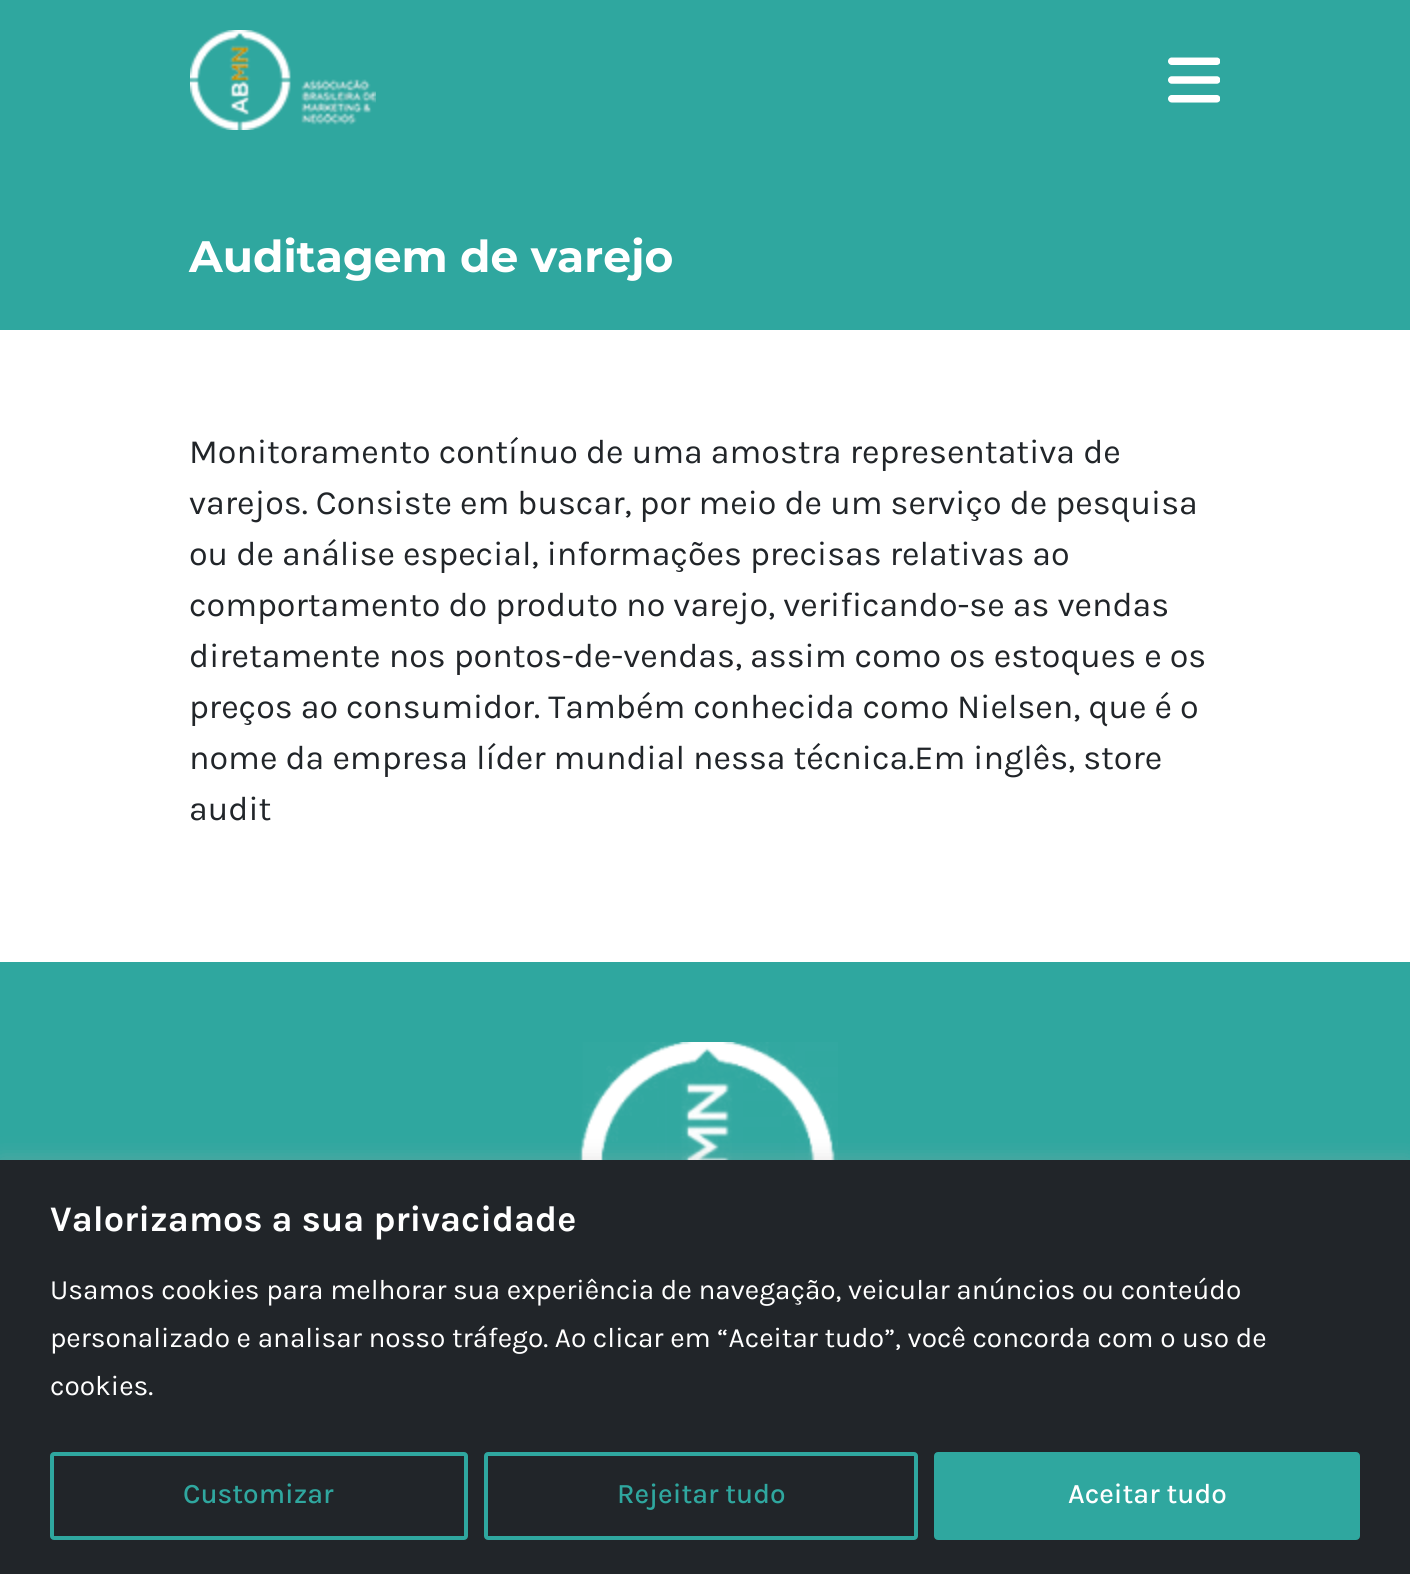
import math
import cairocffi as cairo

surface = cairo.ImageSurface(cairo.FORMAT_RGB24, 1410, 1574)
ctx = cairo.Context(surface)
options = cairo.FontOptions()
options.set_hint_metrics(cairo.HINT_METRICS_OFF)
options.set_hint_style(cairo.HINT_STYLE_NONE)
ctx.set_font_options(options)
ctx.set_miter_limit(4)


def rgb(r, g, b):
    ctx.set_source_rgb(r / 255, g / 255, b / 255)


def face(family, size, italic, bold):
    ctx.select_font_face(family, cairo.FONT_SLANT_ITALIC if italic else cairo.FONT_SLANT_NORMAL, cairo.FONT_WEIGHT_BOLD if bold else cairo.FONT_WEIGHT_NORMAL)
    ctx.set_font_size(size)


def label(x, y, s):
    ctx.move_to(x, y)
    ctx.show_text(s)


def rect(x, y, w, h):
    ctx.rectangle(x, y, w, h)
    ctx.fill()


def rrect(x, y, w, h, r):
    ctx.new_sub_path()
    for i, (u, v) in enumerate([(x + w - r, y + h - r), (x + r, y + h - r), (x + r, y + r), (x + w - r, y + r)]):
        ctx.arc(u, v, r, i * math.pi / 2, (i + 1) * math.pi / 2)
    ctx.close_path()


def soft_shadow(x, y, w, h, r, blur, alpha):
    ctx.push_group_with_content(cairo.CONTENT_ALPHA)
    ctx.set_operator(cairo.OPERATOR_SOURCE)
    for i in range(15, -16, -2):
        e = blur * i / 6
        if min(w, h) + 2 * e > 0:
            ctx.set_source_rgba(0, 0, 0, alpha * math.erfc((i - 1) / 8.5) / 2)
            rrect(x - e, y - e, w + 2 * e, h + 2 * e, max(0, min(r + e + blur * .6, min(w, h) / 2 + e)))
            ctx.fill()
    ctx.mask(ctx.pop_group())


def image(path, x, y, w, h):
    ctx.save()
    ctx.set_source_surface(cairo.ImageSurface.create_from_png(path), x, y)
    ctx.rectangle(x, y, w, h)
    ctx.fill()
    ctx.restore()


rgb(255, 255, 255)
ctx.paint()
rgb(47, 167, 159)
rect(0, 0, 1410, 330)
image('image0.png', 190, 30, 186, 100)
image('image1.png', 1168, 57, 52, 46)
face('Montserrat', 44, 0, 1)
rgb(255, 255, 255)
label(189, 272, 'Auditagem de varejo')
face('Karla', 34, 0, 0)
rgb(33, 37, 41)
label(189, 463, 'Monitoramento contínuo de uma amostra representativa de')
label(189, 514, 'varejos. Consiste em buscar, por meio de um serviço de pesquisa')
label(189, 565, 'ou de análise especial, informações precisas relativas ao')
label(189, 616, 'comportamento do produto no varejo, verificando-se as vendas')
label(189, 667, 'diretamente nos pontos-de-vendas, assim como os estoques e os')
label(189, 718, 'preços ao consumidor. Também conhecida como Nielsen, que é o')
label(189, 769, 'nome da empresa líder mundial nessa técnica.Em inglês, store')
label(189, 820, 'audit')
rgb(47, 167, 159)
rect(0, 962, 1410, 198)
image('image2.png', 579, 1042, 259, 118)
rgb(172, 171, 171)
soft_shadow(0, 1158, 1410, 414, 0, 10, 0.3)
rgb(33, 37, 41)
rect(0, 1160, 1410, 414)
face('Karla', 36, 0, 1)
rgb(255, 255, 255)
label(50, 1231, 'Valorizamos a sua privacidade')
face('Karla', 28, 0, 0)
label(50, 1299, 'Usamos cookies para melhorar sua experiência de navegação, veicular anúncios ou conteúdo')
label(50, 1347, 'personalizado e analisar nosso tráfego. Ao clicar em “Aceitar tudo”, você concorda com o uso de')
label(50, 1395, 'cookies.')
rrect(52, 1454, 414, 84, 2)
rgb(47, 167, 159)
ctx.set_line_width(4)
ctx.stroke()
face('Karla Medium', 28, 0, 0)
label(183, 1503, 'Customizar')
rrect(486, 1454, 430, 84, 2)
ctx.stroke()
label(617, 1503, 'Rejeitar tudo')
rrect(936, 1454, 422, 84, 2)
ctx.fill_preserve()
ctx.stroke()
rgb(255, 255, 255)
label(1068, 1503, 'Aceitar tudo')
surface.write_to_png('render.png')
